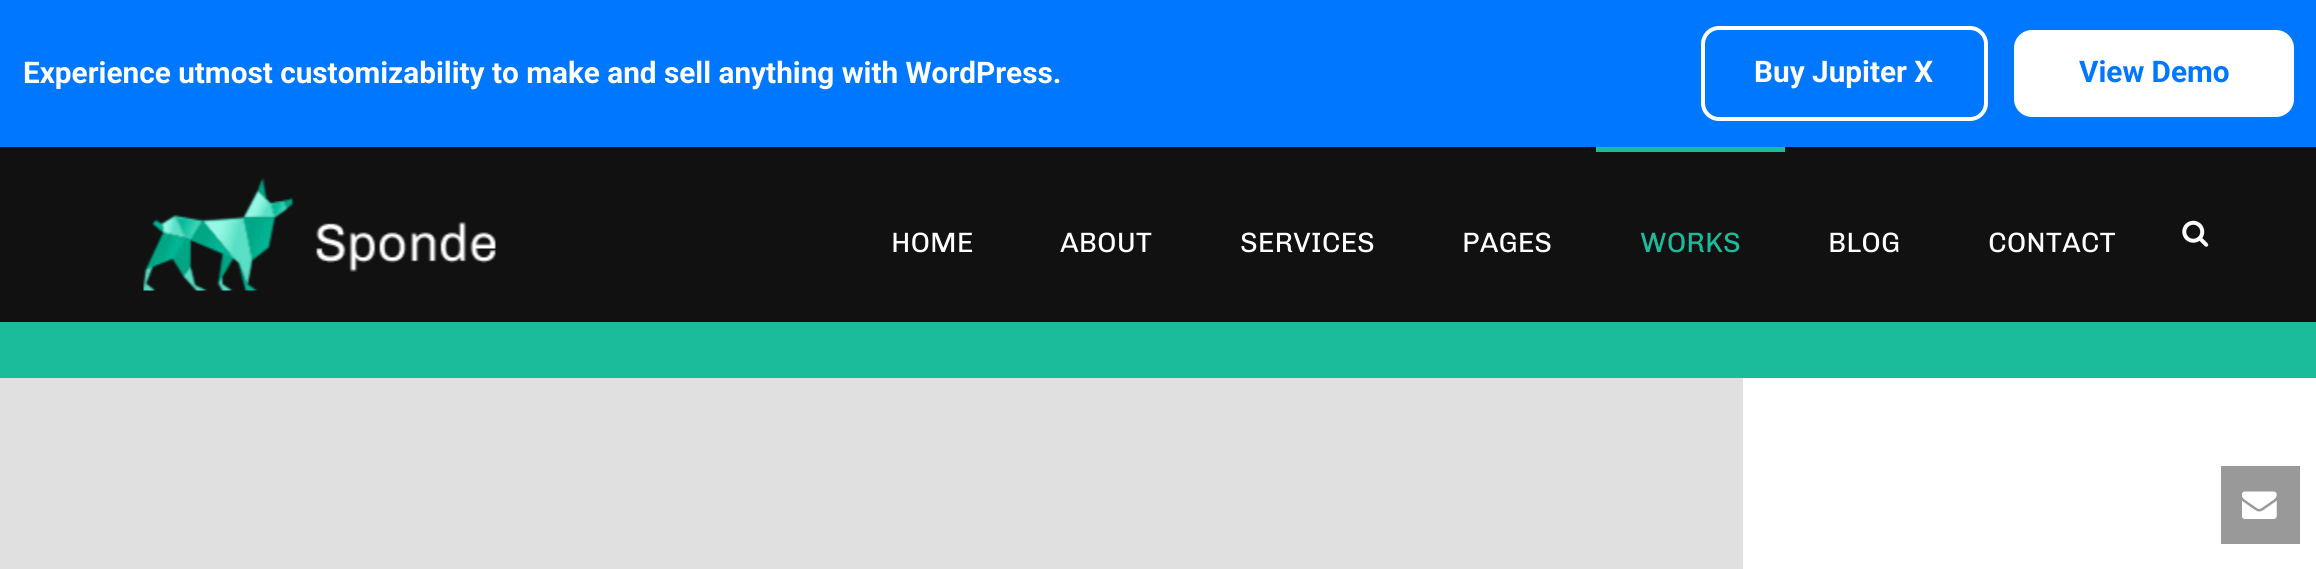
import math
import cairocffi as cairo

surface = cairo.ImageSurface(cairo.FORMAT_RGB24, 2316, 569)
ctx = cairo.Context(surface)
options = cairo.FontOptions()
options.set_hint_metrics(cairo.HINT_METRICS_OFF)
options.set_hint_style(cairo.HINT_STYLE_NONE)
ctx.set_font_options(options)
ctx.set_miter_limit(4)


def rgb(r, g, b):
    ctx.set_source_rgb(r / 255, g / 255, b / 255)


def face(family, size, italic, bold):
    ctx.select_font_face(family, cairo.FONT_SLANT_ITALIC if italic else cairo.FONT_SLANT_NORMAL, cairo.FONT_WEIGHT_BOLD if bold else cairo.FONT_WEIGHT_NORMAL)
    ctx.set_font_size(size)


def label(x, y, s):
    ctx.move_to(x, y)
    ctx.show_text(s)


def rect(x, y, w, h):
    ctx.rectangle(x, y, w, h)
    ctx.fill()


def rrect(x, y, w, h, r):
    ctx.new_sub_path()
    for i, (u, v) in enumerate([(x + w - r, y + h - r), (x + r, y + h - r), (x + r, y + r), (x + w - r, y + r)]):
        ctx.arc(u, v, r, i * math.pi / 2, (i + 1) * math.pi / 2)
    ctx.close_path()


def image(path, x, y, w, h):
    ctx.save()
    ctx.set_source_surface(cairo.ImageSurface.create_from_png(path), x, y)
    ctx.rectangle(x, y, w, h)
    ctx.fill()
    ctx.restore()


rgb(255, 255, 255)
ctx.paint()
rgb(0, 119, 255)
rect(0, 0, 2316, 147)
face('Roboto', 29.75, 0, 1)
rgb(255, 255, 255)
label(23, 83, 'Experience utmost customizability to make and sell anything with WordPress.')
rrect(1703, 28, 283, 91, 16)
ctx.set_line_width(4)
ctx.stroke()
label(1754, 82, 'Buy Jupiter X')
rrect(2014, 30, 280, 87, 18)
ctx.fill()
rgb(0, 119, 255)
label(2079, 82, 'View Demo')
rgb(17, 17, 17)
rect(0, 147, 2316, 175)
image('image0.png', 143, 178, 353, 113)
face('Chivo', 28, 0, 0)
rgb(255, 255, 255)
label(891, 252, 'HOME')
label(1060, 252, 'ABOUT')
label(1240, 252, 'SERVICES')
label(1462, 252, 'PAGES')
rgb(27, 188, 155)
rect(1596, 147, 189, 5)
label(1640, 252, 'WORKS')
rgb(255, 255, 255)
label(1828, 252, 'BLOG')
label(1988, 252, 'CONTACT')
image('image1.png', 2182, 220, 27, 27)
rgb(27, 188, 155)
rect(0, 322, 2316, 56)
rgb(224, 224, 224)
rect(0, 378, 1743, 191)
rgb(153, 153, 153)
rect(2221, 466, 79, 78)
image('image2.png', 2242, 491, 35, 28)
surface.write_to_png('render.png')
